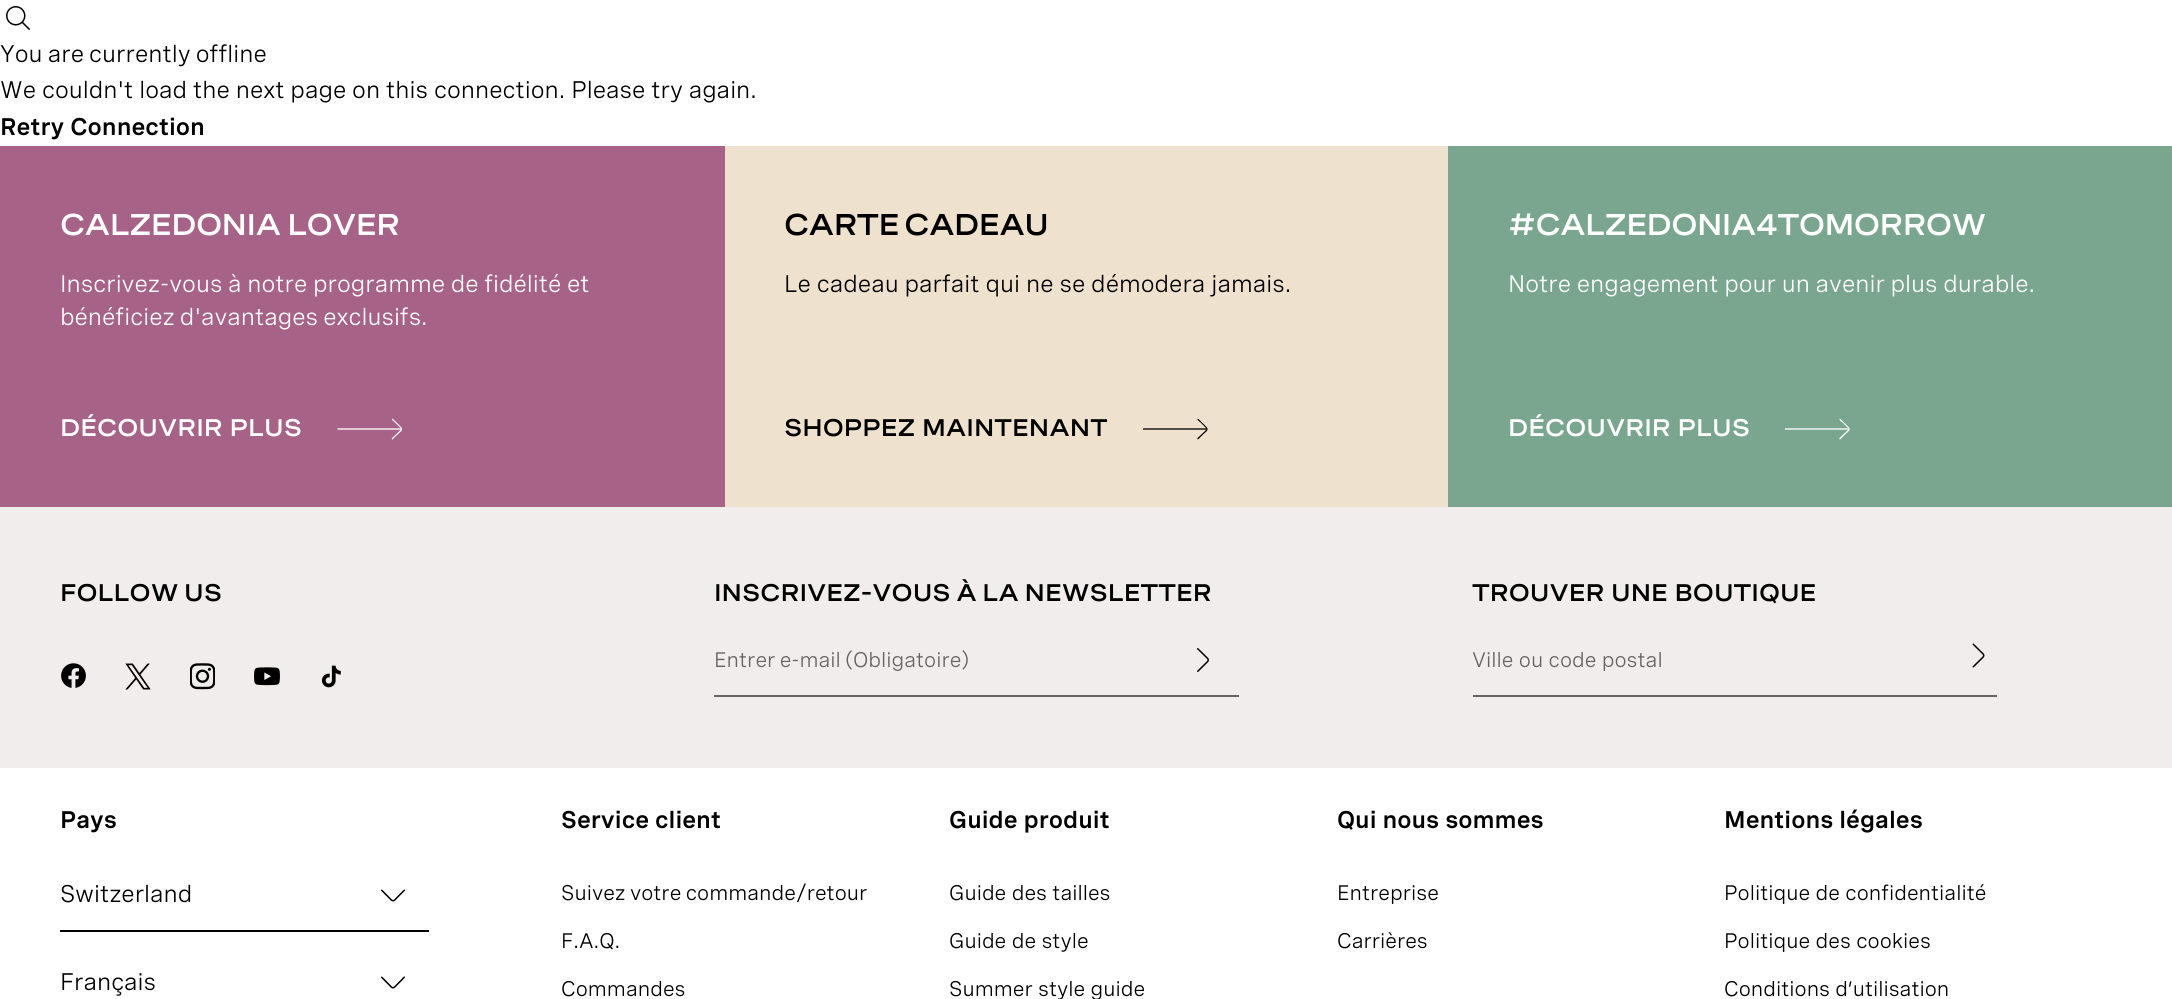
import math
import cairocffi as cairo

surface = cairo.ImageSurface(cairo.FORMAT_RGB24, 2172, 999)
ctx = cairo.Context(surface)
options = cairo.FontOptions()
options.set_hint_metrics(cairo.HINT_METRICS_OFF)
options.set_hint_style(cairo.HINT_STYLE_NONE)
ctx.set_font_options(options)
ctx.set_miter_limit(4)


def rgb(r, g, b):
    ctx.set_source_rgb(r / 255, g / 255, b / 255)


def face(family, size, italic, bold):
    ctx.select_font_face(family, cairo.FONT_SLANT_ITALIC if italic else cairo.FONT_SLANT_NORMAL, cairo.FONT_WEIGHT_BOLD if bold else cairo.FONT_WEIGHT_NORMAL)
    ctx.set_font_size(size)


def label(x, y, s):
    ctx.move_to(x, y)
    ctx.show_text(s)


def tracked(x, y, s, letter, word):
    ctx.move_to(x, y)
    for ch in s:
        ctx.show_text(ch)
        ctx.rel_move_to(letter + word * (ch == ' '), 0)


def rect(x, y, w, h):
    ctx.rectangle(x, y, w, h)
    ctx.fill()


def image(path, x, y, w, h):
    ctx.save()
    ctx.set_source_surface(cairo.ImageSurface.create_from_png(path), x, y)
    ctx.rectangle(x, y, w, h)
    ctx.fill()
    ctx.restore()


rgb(255, 255, 255)
ctx.paint()
image('image0.png', 6, 6, 24, 24)
face('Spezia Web', 24, 0, 0)
rgb(0, 0, 0)
tracked(0, 62, 'You are currently offline', 0, -1)
tracked(0, 98, 'We couldn\'t load the next page on this connection. Please try again.', 0, -0.25)
face('Spezia Web SemiBold', 24, 0, 0)
label(0, 135, 'Retry Connection')
rgb(167, 98, 135)
rect(0, 146, 725, 361)
face('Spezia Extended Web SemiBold', 30, 0, 0)
rgb(255, 255, 255)
tracked(60, 235, 'CALZEDONIA LOVER', -0.6, -1)
face('Spezia Web', 24, 0, 0)
tracked(60, 292, 'Inscrivez-vous à notre programme de fidélité et', 0, -0.5)
tracked(60, 325, 'bénéficiez d\'avantages exclusifs.', 0, -1)
face('Spezia Extended Web SemiBold', 24, 0, 0)
label(60, 436, 'DÉCOUVRIR PLUS')
ctx.new_path()
ctx.move_to(401, 429)
ctx.line_to(337.5, 429)
ctx.set_line_width(1.3)
ctx.stroke()
ctx.new_path()
ctx.move_to(392, 438)
ctx.curve_to(391.5, 438.5, 392, 439.5, 392.5, 439.5)
ctx.line_to(397, 435)
ctx.curve_to(401, 431, 404.5, 430, 400, 426)
ctx.line_to(393, 419)
ctx.curve_to(392.5, 418.5, 392, 418.5, 392, 419)
ctx.curve_to(391.5, 420, 394.5, 422, 395, 422.5)
ctx.line_to(399, 426.5)
ctx.curve_to(401.5, 429, 401.5, 429, 399, 431.5)
ctx.close_path()
ctx.fill()
rgb(238, 225, 205)
rect(725, 146, 723, 361)
face('Spezia Extended Web SemiBold', 30, 0, 0)
rgb(0, 0, 0)
tracked(784, 235, 'CARTE CADEAU', -0.6, -2)
face('Spezia Web', 24, 0, 0)
tracked(784, 292, 'Le cadeau parfait qui ne se démodera jamais.', 0, -0.25)
ctx.save()
ctx.rectangle(785, 413, 322, 33)
ctx.clip()
face('Spezia Extended Web SemiBold', 24, 0, 0)
label(784, 436, 'SHOPPEZ MAINTENANT')
ctx.restore()
ctx.new_path()
ctx.move_to(1206.5, 429)
ctx.line_to(1143, 429)
ctx.stroke()
ctx.new_path()
ctx.move_to(1197.5, 438)
ctx.curve_to(1197, 438.5, 1197.5, 439.5, 1198, 439.5)
ctx.line_to(1202.5, 435)
ctx.curve_to(1206.5, 431, 1210, 430, 1205.5, 426)
ctx.line_to(1198.5, 419)
ctx.curve_to(1198, 418.5, 1197.5, 418.5, 1197.5, 419)
ctx.curve_to(1197, 420, 1200, 422, 1200.5, 422.5)
ctx.line_to(1204.5, 426.5)
ctx.curve_to(1207, 429, 1207, 429, 1204.5, 431.5)
ctx.close_path()
ctx.fill()
rgb(122, 166, 144)
rect(1448, 146, 724, 361)
face('Spezia Extended Web SemiBold', 30, 0, 0)
rgb(255, 255, 255)
tracked(1508, 235, '#CALZEDONIA4TOMORROW', -0.6, 0)
face('Spezia Web', 24, 0, 0)
tracked(1508, 292, 'Notre engagement pour un avenir plus durable.', 0, -0.5)
face('Spezia Extended Web SemiBold', 24, 0, 0)
label(1508, 436, 'DÉCOUVRIR PLUS')
ctx.new_path()
ctx.move_to(1848.5, 429)
ctx.line_to(1785, 429)
ctx.stroke()
ctx.new_path()
ctx.move_to(1839.5, 438)
ctx.curve_to(1839, 438.5, 1839.5, 439.5, 1840, 439.5)
ctx.line_to(1844.5, 435)
ctx.curve_to(1848.5, 431, 1852, 430, 1847.5, 426)
ctx.line_to(1840.5, 419)
ctx.curve_to(1840, 418.5, 1839.5, 418.5, 1839.5, 419)
ctx.curve_to(1839, 420, 1842, 422, 1842.5, 422.5)
ctx.line_to(1846.5, 426.5)
ctx.curve_to(1849, 429, 1849, 429, 1846.5, 431.5)
ctx.close_path()
ctx.fill()
rgb(242, 237, 237)
rect(0, 507, 2172, 261)
rgb(0, 0, 0)
tracked(60, 601, 'FOLLOW US', 0, -1)
image('image1.png', 61, 663, 25, 25)
image('image2.png', 125, 663, 26, 27)
image('image3.png', 190, 663, 25, 27)
image('image4.png', 254, 667, 26, 19)
image('image5.png', 321, 665, 20, 23)
tracked(714, 601, 'INSCRIVEZ-VOUS À LA NEWSLETTER', 0, -1)
image('image6.png', 1197, 648, 12, 24)
rgb(100, 100, 100)
rect(714, 695, 525, 2)
face('Spezia Web', 21, 0, 0)
tracked(714, 667, 'Entrer e-mail (Obligatoire)', 0, -1)
face('Spezia Extended Web SemiBold', 24, 0, 0)
rgb(0, 0, 0)
label(1472, 601, 'TROUVER UNE BOUTIQUE')
rgb(100, 100, 100)
rect(1473, 695, 524, 2)
face('Spezia Web', 21, 0, 0)
label(1472, 667, 'Ville ou code postal')
image('image7.png', 1972, 643, 13, 25)
face('Spezia Web SemiBold', 24, 0, 0)
rgb(0, 0, 0)
label(60, 828, 'Pays')
rect(60, 930, 369, 2)
face('Spezia Web', 24, 0, 0)
label(60, 902, 'Switzerland')
image('image8.png', 381, 889, 24, 13)
label(60, 990, 'Français')
image('image8.png', 381, 976, 24, 13)
face('Spezia Web SemiBold', 24, 0, 0)
label(561, 828, 'Service client')
face('Spezia Web', 21, 0, 0)
tracked(561, 900, 'Suivez votre commande/retour', 0, -1)
label(561, 948, 'F.A.Q.')
label(561, 996, 'Commandes')
face('Spezia Web SemiBold', 24, 0, 0)
label(949, 828, 'Guide produit')
face('Spezia Web', 21, 0, 0)
label(949, 900, 'Guide des tailles')
label(949, 948, 'Guide de style')
label(949, 996, 'Summer style guide')
face('Spezia Web SemiBold', 24, 0, 0)
label(1337, 828, 'Qui nous sommes')
face('Spezia Web', 21, 0, 0)
label(1337, 900, 'Entreprise')
label(1337, 948, 'Carrières')
face('Spezia Web SemiBold', 24, 0, 0)
label(1724, 828, 'Mentions légales')
face('Spezia Web', 21, 0, 0)
label(1724, 900, 'Politique de confidentialité')
label(1724, 948, 'Politique des cookies')
label(1724, 996, 'Conditions d’utilisation')
surface.write_to_png('render.png')
